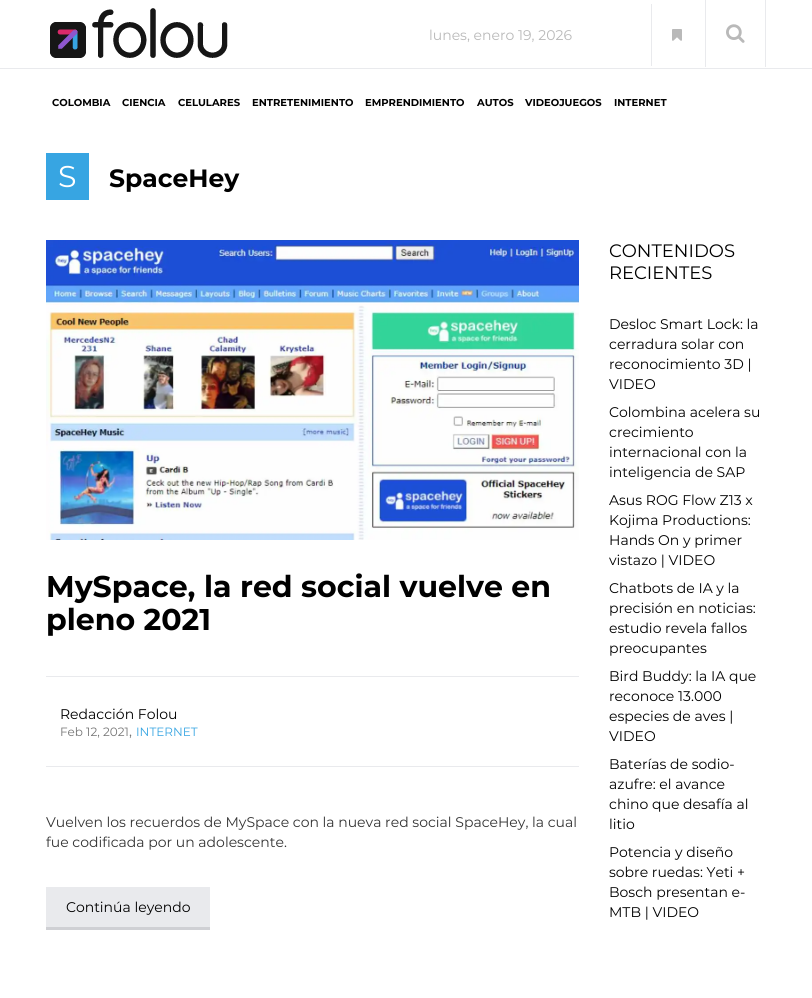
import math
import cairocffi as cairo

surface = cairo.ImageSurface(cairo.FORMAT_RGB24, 812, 998)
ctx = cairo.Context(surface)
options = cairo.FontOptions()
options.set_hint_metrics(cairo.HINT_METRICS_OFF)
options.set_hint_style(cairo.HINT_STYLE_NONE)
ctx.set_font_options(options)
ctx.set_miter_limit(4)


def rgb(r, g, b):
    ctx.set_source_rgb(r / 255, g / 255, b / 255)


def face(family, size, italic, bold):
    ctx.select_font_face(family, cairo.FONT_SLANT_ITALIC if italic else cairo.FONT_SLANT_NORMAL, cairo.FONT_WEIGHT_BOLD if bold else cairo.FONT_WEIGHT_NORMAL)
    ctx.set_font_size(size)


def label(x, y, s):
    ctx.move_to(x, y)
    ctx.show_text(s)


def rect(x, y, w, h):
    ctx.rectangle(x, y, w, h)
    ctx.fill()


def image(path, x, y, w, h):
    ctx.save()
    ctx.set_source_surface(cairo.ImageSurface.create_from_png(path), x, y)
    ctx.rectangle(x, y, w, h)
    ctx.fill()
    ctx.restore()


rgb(255, 255, 255)
ctx.paint()
rgb(233, 234, 237)
rect(0, 68, 812, 1)
image('image0.png', 50, 8, 178, 50)
face('Montserrat', 14, 0, 0)
rgb(185, 185, 185)
label(429, 40, 'lunes, enero 19, 2026')
rgb(233, 234, 237)
rect(651, 4, 1, 62)
image('image1.png', 672, 29, 10, 12)
rect(765, 0, 1, 67)
rect(705, 0, 1, 67)
image('image2.png', 726, 24, 19, 19)
face('Montserrat', 10, 0, 1)
rgb(0, 0, 0)
label(52, 106, 'COLOMBIA')
label(122, 106, 'CIENCIA')
label(178, 106, 'CELULARES')
label(252, 106, 'ENTRETENIMIENTO')
label(365, 106, 'EMPRENDIMIENTO')
label(477, 106, 'AUTOS')
label(525, 106, 'VIDEOJUEGOS')
label(614, 106, 'INTERNET')
rgb(55, 165, 226)
rect(46, 153, 43, 47)
face('Montserrat', 30, 0, 0)
rgb(255, 255, 255)
label(58, 187, 'S')
face('Montserrat', 25, 0, 1)
rgb(0, 0, 0)
label(109, 187, 'SpaceHey')
image('image3.png', 46, 240, 533, 300)
face('Montserrat', 30, 0, 1)
label(46, 597, 'MySpace, la red social vuelve en')
label(46, 630, 'pleno 2021')
rgb(233, 234, 237)
rect(46, 676, 533, 1)
rect(46, 766, 533, 1)
face('Montserrat', 14, 0, 0)
rgb(0, 0, 0)
label(60, 719, 'Redacción Folou')
face('Montserrat', 12, 0, 0)
rgb(117, 117, 117)
label(60, 736, 'Feb 12, 2021')
rgb(55, 165, 226)
label(136, 736, 'INTERNET')
face('Montserrat', 14, 0, 0)
rgb(117, 117, 117)
label(129, 736, ',')
rgb(51, 51, 51)
label(46, 827, 'Vuelven los recuerdos de MySpace con la nueva red social SpaceHey, la cual')
label(46, 847, 'fue codificada por un adolescente.')
rgb(233, 234, 237)
rect(46, 887, 164, 40)
rgb(207, 208, 212)
rect(46, 927, 164, 3)
rgb(0, 0, 0)
label(66, 912, 'Continúa leyendo')
face('Montserrat', 18, 0, 0)
label(609, 257, 'CONTENIDOS')
label(609, 279, 'RECIENTES')
face('Montserrat', 14, 0, 0)
label(609, 329, 'Desloc Smart Lock: la')
label(609, 349, 'cerradura solar con')
label(609, 369, 'reconocimiento 3D |')
label(609, 389, 'VIDEO')
label(609, 417, 'Colombina acelera su')
label(609, 437, 'crecimiento')
label(609, 457, 'internacional con la')
label(609, 477, 'inteligencia de SAP')
label(609, 505, 'Asus ROG Flow Z13 x')
label(609, 525, 'Kojima Productions:')
label(609, 545, 'Hands On y primer')
label(609, 565, 'vistazo | VIDEO')
label(609, 593, 'Chatbots de IA y la')
label(609, 613, 'precisión en noticias:')
label(609, 633, 'estudio revela fallos')
label(609, 653, 'preocupantes')
label(609, 681, 'Bird Buddy: la IA que')
label(609, 701, 'reconoce 13.000')
label(609, 721, 'especies de aves |')
label(609, 741, 'VIDEO')
label(609, 769, 'Baterías de sodio-')
label(609, 789, 'azufre: el avance')
label(609, 809, 'chino que desafía al')
label(609, 829, 'litio')
label(609, 857, 'Potencia y diseño')
label(609, 877, 'sobre ruedas: Yeti +')
label(609, 897, 'Bosch presentan e-')
label(609, 917, 'MTB | VIDEO')
surface.write_to_png('render.png')
